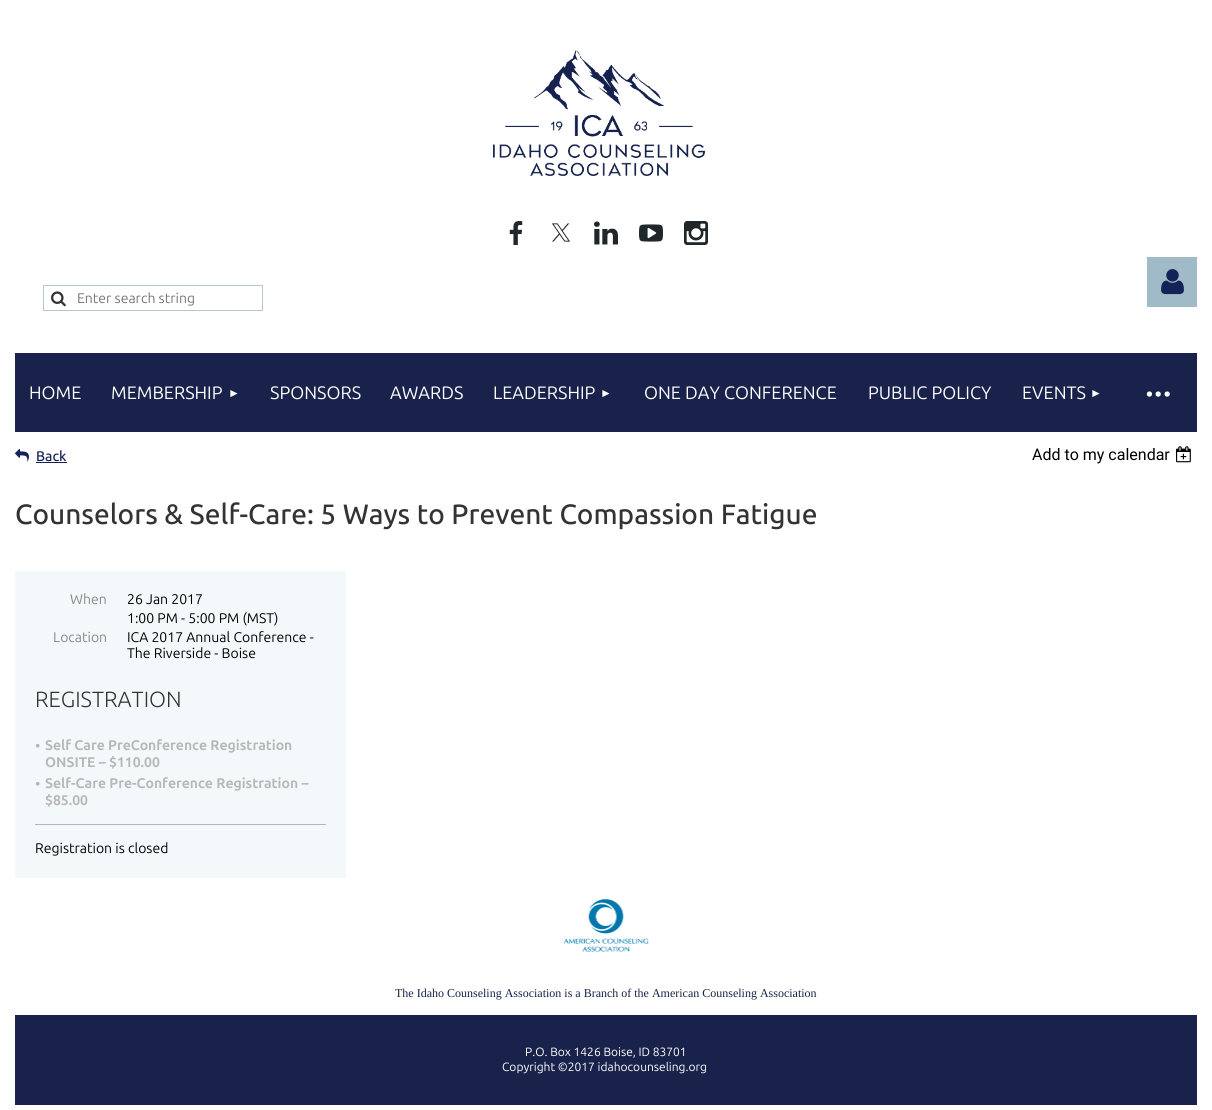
import math
import cairocffi as cairo

surface = cairo.ImageSurface(cairo.FORMAT_RGB24, 1212, 1110)
ctx = cairo.Context(surface)
options = cairo.FontOptions()
options.set_hint_metrics(cairo.HINT_METRICS_OFF)
options.set_hint_style(cairo.HINT_STYLE_NONE)
ctx.set_font_options(options)
ctx.set_miter_limit(4)


def rgb(r, g, b):
    ctx.set_source_rgb(r / 255, g / 255, b / 255)


def face(family, size, italic, bold):
    ctx.select_font_face(family, cairo.FONT_SLANT_ITALIC if italic else cairo.FONT_SLANT_NORMAL, cairo.FONT_WEIGHT_BOLD if bold else cairo.FONT_WEIGHT_NORMAL)
    ctx.set_font_size(size)


def label(x, y, s):
    ctx.move_to(x, y)
    ctx.show_text(s)


def tracked(x, y, s, letter, word):
    ctx.move_to(x, y)
    for ch in s:
        ctx.show_text(ch)
        ctx.rel_move_to(letter + word * (ch == ' '), 0)


def rect(x, y, w, h):
    ctx.rectangle(x, y, w, h)
    ctx.fill()


def image(path, x, y, w, h):
    ctx.save()
    ctx.set_source_surface(cairo.ImageSurface.create_from_png(path), x, y)
    ctx.rectangle(x, y, w, h)
    ctx.fill()
    ctx.restore()


rgb(255, 255, 255)
ctx.paint()
image('image0.png', 493, 50, 212, 126)
image('image1.png', 509, 221, 14, 24)
image('image2.png', 552, 223, 18, 19)
image('image3.png', 594, 221, 24, 24)
image('image4.png', 639, 224, 24, 18)
image('image5.png', 684, 221, 24, 24)
ctx.rectangle(43.5, 285.5, 219, 25)
rgb(184, 198, 205)
ctx.set_line_width(1)
ctx.stroke()
image('image6.png', 51, 291, 15, 16)
face('Ubuntu', 14, 0, 0)
rgb(117, 117, 117)
label(77, 303, 'Enter search string')
rgb(160, 186, 199)
rect(1147, 257, 50, 50)
image('image7.png', 1161, 269, 23, 26)
rgb(25, 34, 74)
rect(15, 353, 1182, 79)
face('Ubuntu', 18, 0, 0)
rgb(255, 255, 255)
label(29, 399, 'HOME')
label(111, 399, 'MEMBERSHIP')
face('Liberation Sans', 12, 0, 0)
label(228, 397, '►')
face('Ubuntu', 18, 0, 0)
label(270, 399, 'SPONSORS')
label(390, 399, 'AWARDS')
label(493, 399, 'LEADERSHIP')
face('Liberation Sans', 12, 0, 0)
label(600, 397, '►')
face('Ubuntu', 18, 0, 0)
label(644, 399, 'ONE DAY CONFERENCE')
label(868, 399, 'PUBLIC POLICY')
label(1022, 399, 'EVENTS')
face('Liberation Sans', 12, 0, 0)
label(1090, 397, '►')
face('Ubuntu', 44, 0, 0)
tracked(1144, 407, '···', -2, 0)
image('image8.png', 15, 448, 14, 14)
face('Ubuntu Medium', 14, 0, 0)
rgb(19, 34, 87)
label(36, 461, 'Back')
rect(36, 462, 31, 1)
face('Roboto', 16, 0, 0)
rgb(0, 0, 0)
label(1032, 460, 'Add to my calendar')
image('image9.png', 1176, 446, 15, 17)
face('Ubuntu Medium', 28, 0, 0)
rgb(51, 51, 51)
label(15, 524, 'Counselors & Self-Care: 5 Ways to Prevent Compassion Fatigue')
rgb(243, 248, 250)
rect(15, 571, 331, 307)
face('Ubuntu', 14, 0, 0)
rgb(137, 137, 137)
label(70, 604, 'When')
rgb(0, 0, 0)
label(127, 604, '26 Jan 2017')
label(127, 623, '1:00 PM - 5:00 PM (MST)')
rgb(137, 137, 137)
label(53, 642, 'Location')
rgb(0, 0, 0)
label(127, 642, 'ICA 2017 Annual Conference -')
label(127, 658, 'The Riverside - Boise')
face('Ubuntu Light', 22, 0, 0)
rgb(51, 51, 51)
label(35, 707, 'REGISTRATION')
face('Ubuntu', 15, 0, 0)
rgb(183, 183, 183)
label(35, 751, '•')
face('Ubuntu', 14, 0, 1)
label(45, 750, 'Self Care PreConference Registration')
label(45, 767, 'ONSITE – $110.00')
face('Ubuntu', 15, 0, 0)
label(35, 789, '•')
face('Ubuntu', 14, 0, 1)
label(45, 788, 'Self-Care Pre-Conference Registration –')
label(45, 805, '$85.00')
rect(35, 824, 291, 1)
face('Ubuntu', 14, 0, 0)
rgb(0, 0, 0)
label(35, 853, 'Registration is closed')
image('image10.png', 563, 899, 86, 53)
face('Liberation Serif', 12, 0, 0)
rgb(25, 34, 74)
label(395, 997, 'The Idaho Counseling Association is a Branch of the American Counseling Association')
rect(15, 1015, 1182, 90)
face('Ubuntu', 12, 0, 0)
rgb(255, 255, 255)
label(525, 1056, 'P.O. Box 1426 Boise, ID 83701')
label(502, 1071, 'Copyright ©2017 idahocounseling.org')
surface.write_to_png('render.png')
